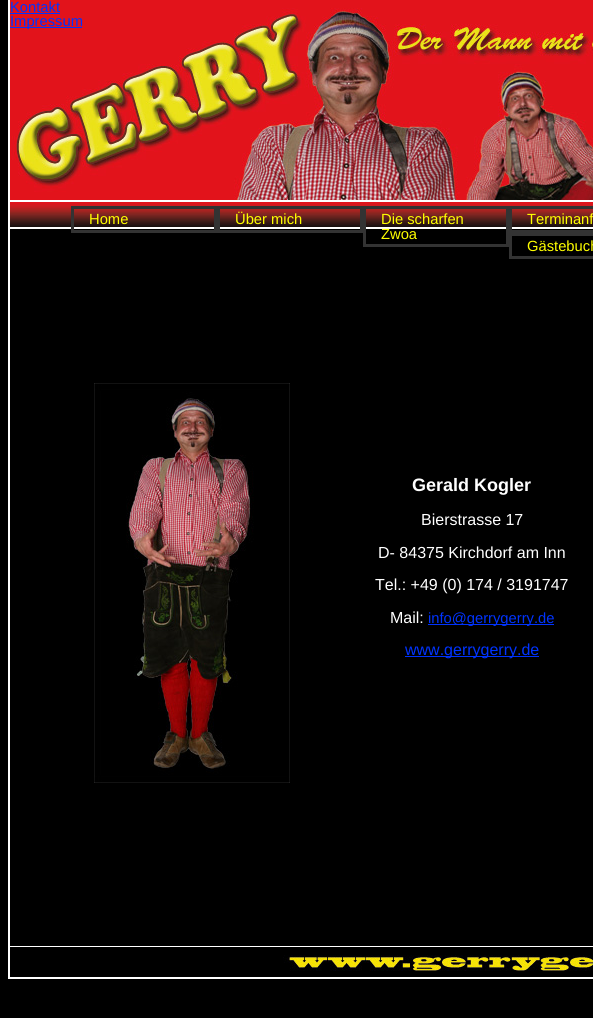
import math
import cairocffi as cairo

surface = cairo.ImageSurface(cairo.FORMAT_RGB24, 593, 1018)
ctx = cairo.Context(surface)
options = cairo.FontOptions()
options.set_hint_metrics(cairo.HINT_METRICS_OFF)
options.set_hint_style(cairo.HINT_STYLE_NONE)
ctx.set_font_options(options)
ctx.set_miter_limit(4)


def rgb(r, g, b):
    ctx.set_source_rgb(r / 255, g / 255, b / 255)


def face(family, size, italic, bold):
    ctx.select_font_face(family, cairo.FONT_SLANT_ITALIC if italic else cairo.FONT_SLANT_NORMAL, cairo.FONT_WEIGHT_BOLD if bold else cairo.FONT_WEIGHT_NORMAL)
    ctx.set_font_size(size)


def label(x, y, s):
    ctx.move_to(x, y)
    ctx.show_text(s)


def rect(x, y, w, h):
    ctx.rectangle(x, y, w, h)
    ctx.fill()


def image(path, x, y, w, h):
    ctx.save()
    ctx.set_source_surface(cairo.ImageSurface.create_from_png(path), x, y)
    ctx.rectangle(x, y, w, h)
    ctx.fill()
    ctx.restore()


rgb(0, 0, 0)
ctx.paint()
rgb(255, 255, 255)
rect(8, 977, 585, 2)
rect(8, 0, 2, 979)
image('image0.png', 10, 0, 583, 200)
rect(10, 200, 583, 2)
face('Liberation Sans', 14.75, 0, 0)
rgb(0, 51, 255)
label(10, 12, 'Kontakt')
rect(10, 13, 50, 1)
rect(10, 27, 72, 1)
label(10, 26, 'Impressum')
image('image1.png', 10, 202, 583, 25)
rgb(255, 255, 255)
rect(10, 227, 583, 2)
ctx.rectangle(72.5, 207.5, 143, 24)
rgb(51, 51, 51)
ctx.set_line_width(3)
ctx.stroke()
rgb(255, 255, 0)
label(89, 224, 'Home')
ctx.rectangle(218.5, 207.5, 143, 24)
rgb(51, 51, 51)
ctx.stroke()
rgb(255, 255, 0)
label(235, 224, 'Über mich')
ctx.rectangle(364.5, 207.5, 143, 38)
rgb(51, 51, 51)
ctx.stroke()
rgb(255, 255, 0)
label(381, 224, 'Die scharfen')
label(381, 239, 'Zwoa')
ctx.rectangle(510.5, 207.5, 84, 24)
rgb(51, 51, 51)
ctx.stroke()
rgb(255, 255, 0)
label(527, 224, 'Terminanf')
ctx.rectangle(510.5, 234.5, 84, 23)
rgb(51, 51, 51)
ctx.stroke()
rgb(255, 255, 0)
label(527, 251, 'Gästebuch')
image('image2.png', 94, 383, 196, 400)
face('Liberation Sans', 18, 0, 1)
rgb(255, 255, 255)
label(412, 491, 'Gerald Kogler')
face('Liberation Sans', 16, 0, 0)
label(421, 525, 'Bierstrasse 17')
label(378, 558, 'D- 84375 Kirchdorf am Inn')
label(375, 590, 'Tel.: +49 (0) 174 / 3191747')
label(390, 623, 'Mail:')
rgb(0, 51, 255)
rect(428, 624, 126, 1)
face('Liberation Sans', 14.75, 0, 0)
label(428, 623, 'info@gerrygerry.de')
rect(405, 656, 134, 1)
face('Liberation Sans', 16, 0, 0)
label(405, 655, 'www.gerrygerry.de')
image('image3.png', 283, 955, 310, 16)
rgb(255, 255, 255)
rect(10, 946, 583, 1)
surface.write_to_png('render.png')
